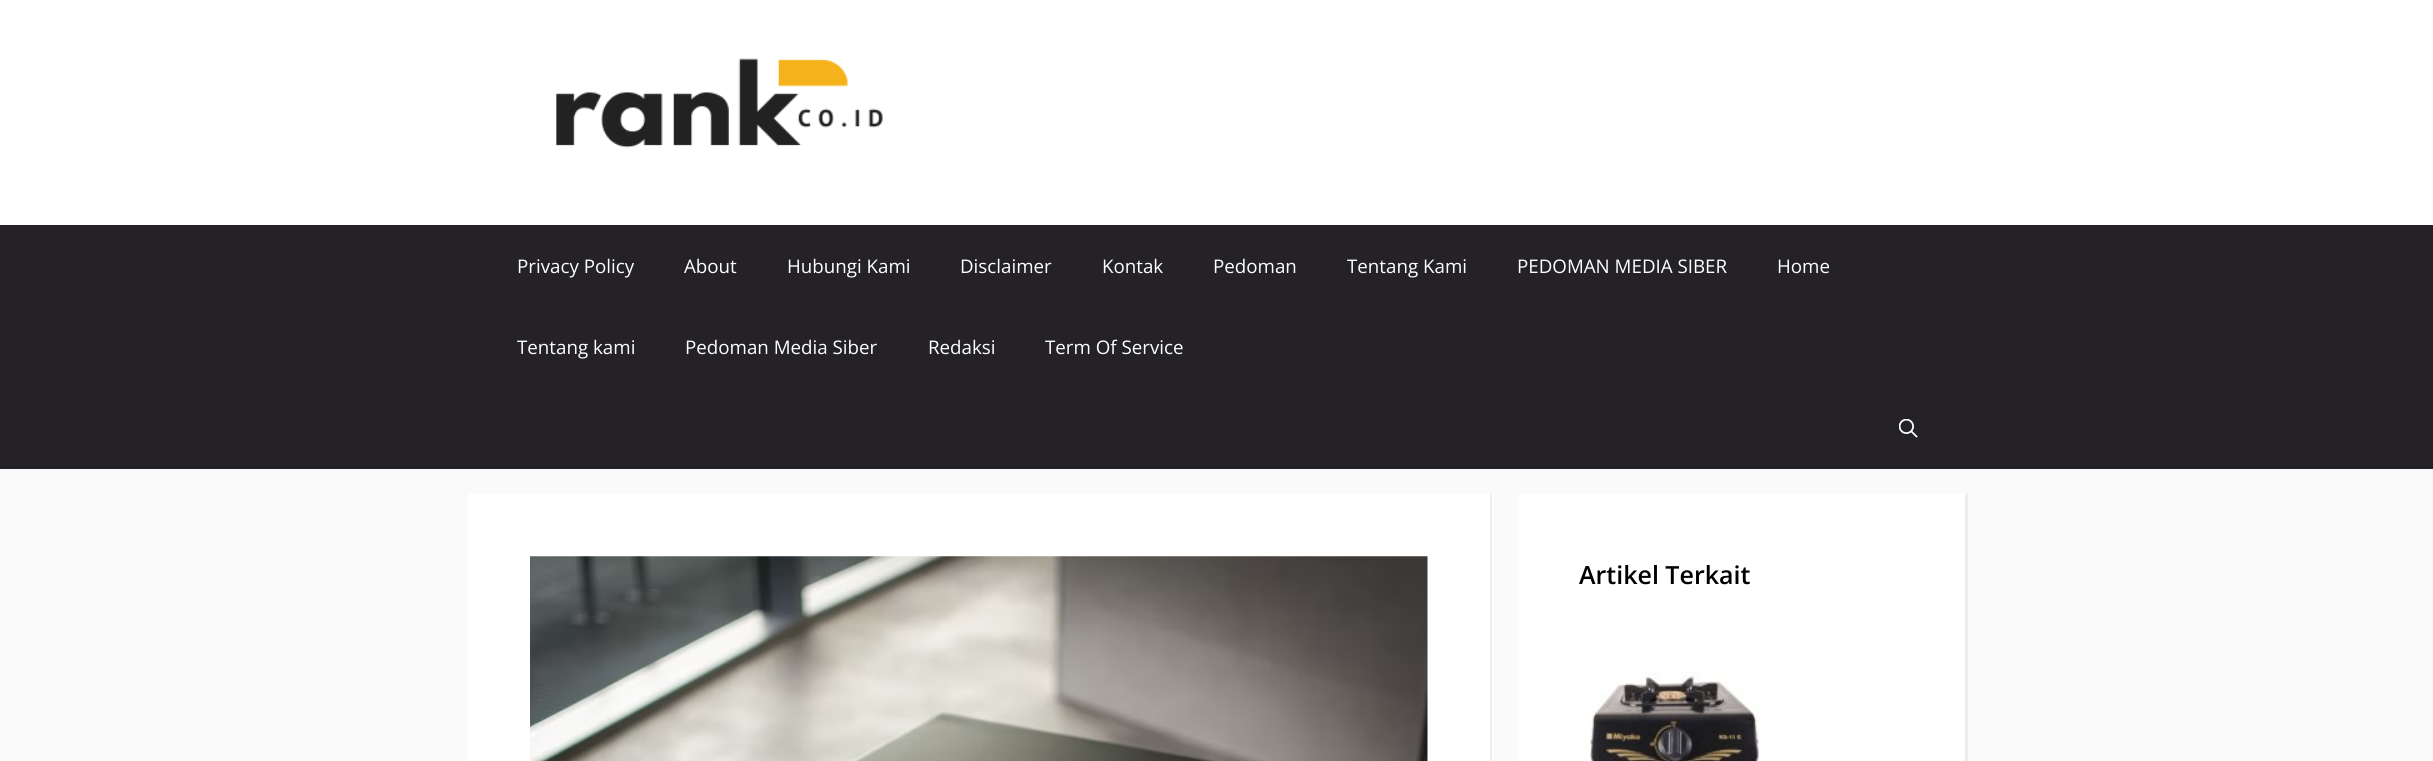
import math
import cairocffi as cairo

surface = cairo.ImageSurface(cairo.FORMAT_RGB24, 2433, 761)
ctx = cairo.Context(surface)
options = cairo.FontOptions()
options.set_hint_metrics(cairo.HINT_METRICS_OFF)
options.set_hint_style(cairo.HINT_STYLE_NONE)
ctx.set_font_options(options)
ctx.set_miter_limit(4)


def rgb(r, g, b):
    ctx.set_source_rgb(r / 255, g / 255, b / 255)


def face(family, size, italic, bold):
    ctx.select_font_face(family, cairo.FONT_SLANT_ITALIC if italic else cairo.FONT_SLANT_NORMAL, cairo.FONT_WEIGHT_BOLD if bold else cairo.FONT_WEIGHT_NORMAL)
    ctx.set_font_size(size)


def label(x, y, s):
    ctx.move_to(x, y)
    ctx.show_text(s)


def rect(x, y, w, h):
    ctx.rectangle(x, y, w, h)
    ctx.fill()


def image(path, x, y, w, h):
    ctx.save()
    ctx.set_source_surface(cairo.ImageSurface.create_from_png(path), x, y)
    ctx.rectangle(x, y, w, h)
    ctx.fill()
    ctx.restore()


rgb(250, 250, 250)
ctx.paint()
rgb(255, 255, 255)
rect(0, 0, 2433, 225)
image('image0.png', 556, 58, 327, 90)
rgb(36, 34, 38)
rect(0, 225, 2433, 244)
face('Open Sans', 18.75, 0, 0)
rgb(255, 255, 255)
label(517, 273, 'Privacy Policy')
label(684, 273, 'About')
label(787, 273, 'Hubungi Kami')
label(960, 273, 'Disclaimer')
label(1102, 273, 'Kontak')
label(1213, 273, 'Pedoman')
label(1347, 273, 'Tentang Kami')
label(1517, 273, 'PEDOMAN MEDIA SIBER')
label(1777, 273, 'Home')
label(517, 354, 'Tentang kami')
label(685, 354, 'Pedoman Media Siber')
label(928, 354, 'Redaksi')
label(1045, 354, 'Term Of Service')
image('image1.png', 1899, 419, 19, 19)
rect(468, 494, 1025, 267)
rgb(237, 237, 237)
ctx.new_path()
ctx.move_to(1492, 494)
ctx.line_to(1492, 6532)
ctx.line_to(1490, 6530)
ctx.line_to(1490, 494)
ctx.close_path()
ctx.fill()
image('image2.png', 530, 556, 898, 205)
rgb(255, 255, 255)
rect(1518, 494, 447, 267)
rgb(237, 237, 237)
ctx.new_path()
ctx.move_to(1968, 494)
ctx.line_to(1968, 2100)
ctx.line_to(1965, 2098)
ctx.line_to(1965, 494)
ctx.close_path()
ctx.fill()
face('Open Sans SemiBold', 25, 0, 0)
rgb(0, 0, 0)
label(1579, 584, 'Artikel Terkait')
image('image3.png', 1589, 671, 171, 90)
surface.write_to_png('render.png')
